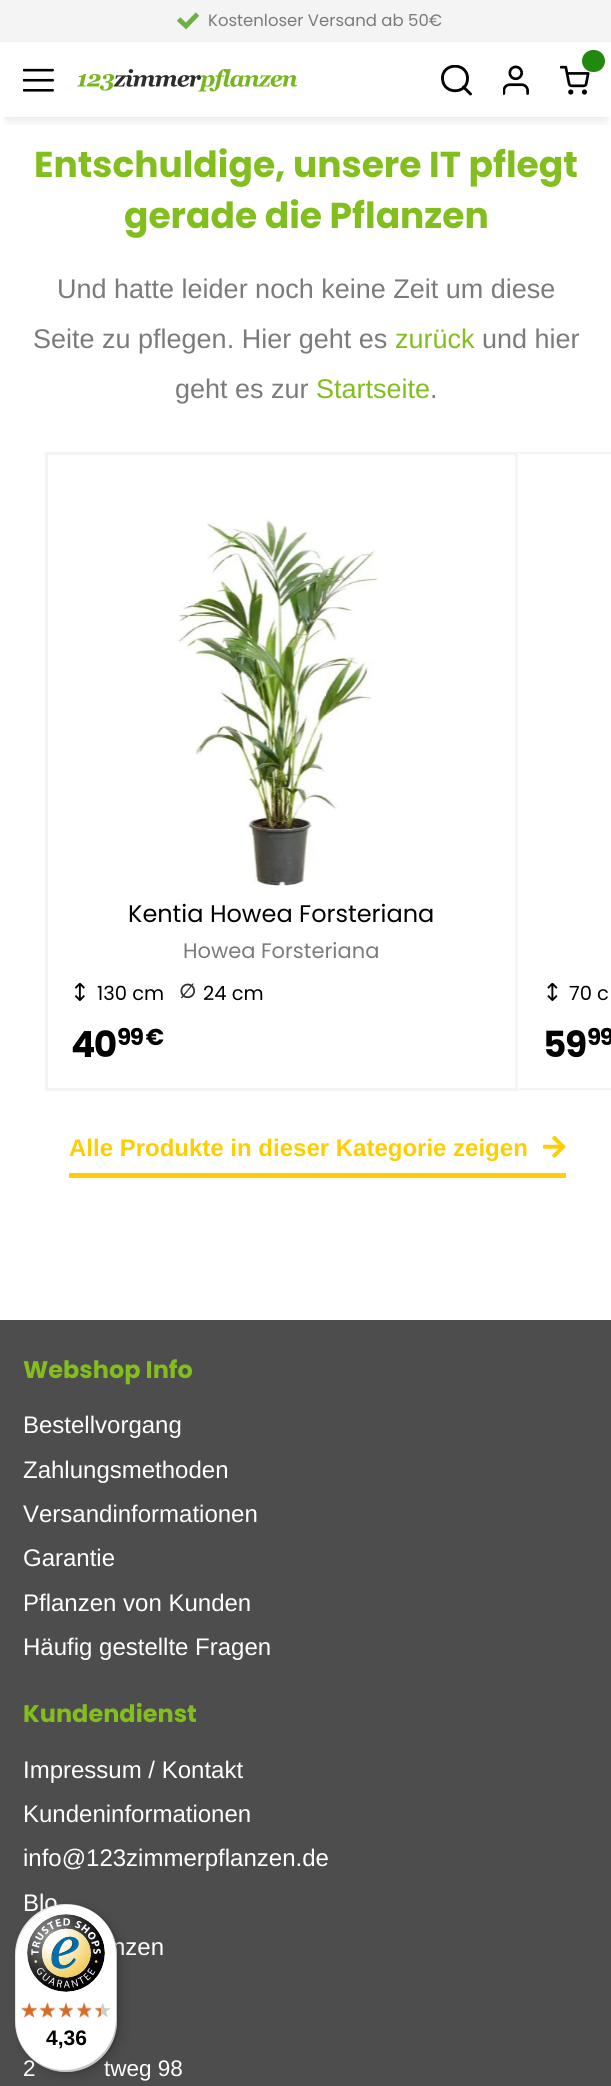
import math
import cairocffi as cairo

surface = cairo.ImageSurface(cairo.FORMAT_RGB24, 611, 2086)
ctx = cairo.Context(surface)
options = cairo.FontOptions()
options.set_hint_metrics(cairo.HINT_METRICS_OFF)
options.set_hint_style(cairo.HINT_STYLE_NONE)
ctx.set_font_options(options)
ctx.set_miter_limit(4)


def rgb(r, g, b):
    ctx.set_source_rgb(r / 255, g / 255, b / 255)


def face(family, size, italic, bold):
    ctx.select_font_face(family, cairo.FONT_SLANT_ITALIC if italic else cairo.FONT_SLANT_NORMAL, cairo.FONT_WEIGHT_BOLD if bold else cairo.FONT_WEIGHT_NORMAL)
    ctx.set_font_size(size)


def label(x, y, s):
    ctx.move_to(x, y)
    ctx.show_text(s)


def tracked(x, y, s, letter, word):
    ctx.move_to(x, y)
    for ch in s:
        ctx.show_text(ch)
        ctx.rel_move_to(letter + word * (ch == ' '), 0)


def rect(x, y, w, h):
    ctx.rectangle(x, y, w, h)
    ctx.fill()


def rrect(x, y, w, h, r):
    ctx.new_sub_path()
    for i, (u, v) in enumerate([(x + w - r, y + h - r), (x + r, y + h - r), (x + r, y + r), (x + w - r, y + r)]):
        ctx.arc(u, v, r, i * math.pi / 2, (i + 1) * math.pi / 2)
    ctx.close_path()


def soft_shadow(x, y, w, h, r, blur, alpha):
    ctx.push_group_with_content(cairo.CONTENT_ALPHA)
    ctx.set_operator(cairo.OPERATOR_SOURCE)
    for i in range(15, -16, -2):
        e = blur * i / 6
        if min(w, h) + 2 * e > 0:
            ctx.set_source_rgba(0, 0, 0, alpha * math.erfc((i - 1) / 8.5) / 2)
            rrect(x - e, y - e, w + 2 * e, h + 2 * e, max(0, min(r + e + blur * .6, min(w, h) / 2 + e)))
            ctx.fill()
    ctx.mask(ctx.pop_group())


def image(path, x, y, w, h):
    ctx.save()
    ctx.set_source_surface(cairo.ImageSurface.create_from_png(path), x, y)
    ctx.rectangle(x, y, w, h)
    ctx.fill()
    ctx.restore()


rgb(255, 255, 255)
ctx.paint()
ctx.save()
ctx.rectangle(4, 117, 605, 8)
ctx.clip()
rgb(0, 0, 0)
soft_shadow(8, 15, 597, 102, 0, 7.5, 0.15)
ctx.restore()
rgb(244, 244, 244)
rect(0, 0, 611, 42)
ctx.new_path()
ctx.move_to(178.5, 19)
ctx.line_to(186, 26)
ctx.line_to(197.5, 14)
rgb(112, 175, 67)
ctx.set_line_width(4.9)
ctx.stroke()
face('Poppins', 16.5, 0, 0)
rgb(123, 123, 123)
label(208, 26, 'Kostenloser Versand ab 50€')
image('image0.png', 23, 68, 31, 24)
image('image1.png', 77, 69, 220, 23)
ctx.save()
ctx.rectangle(441, 65, 32, 31)
ctx.clip()
ctx.new_path()
ctx.move_to(467.5, 78.5)
ctx.curve_to(467.5, 94.5, 443.5, 95, 442.5, 79)
ctx.curve_to(441.5, 62.5, 467.5, 61.5, 467.5, 78.5)
ctx.close_path()
rgb(0, 0, 0)
ctx.set_line_width(2.9)
ctx.set_line_cap(cairo.LINE_CAP_ROUND)
ctx.set_line_join(cairo.LINE_JOIN_ROUND)
ctx.stroke()
ctx.restore()
ctx.new_path()
ctx.move_to(470.5, 94)
ctx.line_to(463.5, 87)
rgb(0, 0, 0)
ctx.set_line_width(2.9)
ctx.set_line_cap(cairo.LINE_CAP_ROUND)
ctx.set_line_join(cairo.LINE_JOIN_ROUND)
ctx.stroke()
image('image2.png', 503, 65, 26, 30)
image('image3.png', 560, 65, 30, 30)
rgb(33, 137, 14)
rrect(582, 50, 23, 22, 11)
ctx.fill()
face('Poppins', 36, 0, 1)
rgb(130, 190, 30)
label(34, 177, 'Entschuldige, unsere IT pflegt')
label(124, 228, 'gerade die Pflanzen')
face('Liberation Sans', 27, 0, 0)
rgb(123, 123, 123)
label(57, 298, 'Und hatte leider noch keine Zeit um diese')
label(33, 348, 'Seite zu pflegen. Hier geht es')
rgb(130, 190, 30)
label(395, 348, 'zurück')
rgb(123, 123, 123)
label(482, 348, 'und hier')
label(175, 398, 'geht es zur')
rgb(130, 190, 30)
label(316, 398, 'Startseite')
rgb(123, 123, 123)
label(430, 398, '.')
ctx.rectangle(46.5, 453.5, 470, 636)
rgb(244, 244, 244)
ctx.set_line_width(3)
ctx.set_line_cap(cairo.LINE_CAP_BUTT)
ctx.set_line_join(cairo.LINE_JOIN_MITER)
ctx.stroke()
image('image4.png', 178, 520, 201, 367)
face('Poppins', 24, 0, 0)
rgb(0, 0, 0)
label(128, 922, 'Kentia Howea Forsteriana')
face('Poppins', 21, 0, 0)
rgb(123, 123, 123)
label(183, 958, 'Howea Forsteriana')
image('image5.png', 74, 983, 11, 18)
face('Poppins', 19.5, 0, 0)
rgb(0, 0, 0)
label(97, 1000, '130 cm')
face('DejaVu Sans', 19.5, 0, 1)
rgb(51, 51, 51)
label(179, 998, '∅')
face('Poppins', 19.5, 0, 0)
rgb(0, 0, 0)
label(203, 1000, '24 cm')
face('Poppins', 36, 0, 1)
tracked(71, 1057, '40', -1.5, 0)
face('Poppins', 23, 0, 1)
tracked(117, 1045, '99 €', -1.5, 0)
rgb(244, 244, 244)
ctx.new_path()
ctx.move_to(518, 452)
ctx.line_to(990, 452)
ctx.line_to(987, 454)
ctx.line_to(520, 454)
ctx.close_path()
ctx.fill()
ctx.new_path()
ctx.move_to(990, 1090)
ctx.line_to(518, 1090)
ctx.line_to(520, 1088)
ctx.line_to(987, 1088)
ctx.close_path()
ctx.fill()
image('image6.png', 547, 983, 11, 18)
face('Poppins', 19.5, 0, 0)
rgb(0, 0, 0)
label(569, 1000, '70 c')
face('Poppins', 36, 0, 1)
tracked(543, 1057, '59', -1.5, 0)
face('Poppins', 23, 0, 1)
tracked(587, 1045, '99', -1.5, 0)
rgb(255, 206, 0)
rect(69, 1173, 497, 5)
face('Liberation Sans', 24, 0, 1)
label(69, 1156, 'Alle Produkte in dieser Kategorie zeigen')
image('image7.png', 543, 1136, 23, 22)
rgb(77, 77, 77)
rect(0, 1320, 611, 766)
face('Poppins', 24, 0, 1)
rgb(130, 190, 30)
label(23, 1378, 'Webshop Info')
face('Liberation Sans', 24, 0, 0)
rgb(255, 255, 255)
label(23, 1433, 'Bestellvorgang')
label(23, 1478, 'Zahlungsmethoden')
label(23, 1522, 'Versandinformationen')
label(23, 1566, 'Garantie')
label(23, 1611, 'Pflanzen von Kunden')
label(23, 1655, 'Häufig gestellte Fragen')
face('Poppins', 24, 0, 1)
rgb(130, 190, 30)
label(23, 1722, 'Kundendienst')
face('Liberation Sans', 24, 0, 0)
rgb(255, 255, 255)
label(23, 1778, 'Impressum / Kontakt')
label(23, 1822, 'Kundeninformationen')
label(23, 1866, 'info@123zimmerpflanzen.de')
label(23, 1911, 'Blo')
label(112, 1955, 'nzen')
face('Liberation Sans', 22.5, 0, 0)
label(23, 2076, '2')
label(104, 2076, 'tweg 98')
rgb(0, 0, 0)
soft_shadow(20, 1908, 102, 168, 51, 6, 0.15)
soft_shadow(17, 1905, 102, 168, 51, 1.5, 0.15)
rgb(255, 255, 255)
rrect(15, 1904, 102, 168, 51)
ctx.fill()
ctx.set_source_rgba(0, 0, 0, 0.1)
ctx.new_path()
ctx.move_to(68, 1905)
ctx.curve_to(78, 1905, 86, 1908, 94, 1912)
ctx.curve_to(86, 1907, 76, 1904, 66, 1904)
ctx.curve_to(38, 1904, 15, 1927, 15, 1955)
ctx.line_to(15, 2021)
ctx.curve_to(15, 2038, 23, 2053, 36, 2062)
ctx.curve_to(24, 2053, 16, 2038, 16, 2022)
ctx.line_to(16, 1956)
ctx.curve_to(16, 1928, 39, 1905, 68, 1905)
ctx.close_path()
ctx.fill()
ctx.set_source_rgba(0, 0, 0, 0.2)
ctx.new_path()
ctx.move_to(22, 2046)
ctx.curve_to(30, 2062, 47, 2072, 66, 2072)
ctx.curve_to(94, 2072, 117, 2049, 117, 2021)
ctx.line_to(117, 1955)
ctx.curve_to(117, 1946, 115, 1937, 110, 1930)
ctx.curve_to(114, 1937, 116, 1945, 116, 1953)
ctx.line_to(116, 2019)
ctx.curve_to(116, 2047, 93, 2070, 64, 2070)
ctx.curve_to(46, 2070, 30, 2060, 22, 2046)
ctx.close_path()
ctx.fill()
ctx.set_source_rgba(0.196, 0.196, 0.196, 0.2)
ctx.new_path()
ctx.move_to(27, 2054)
ctx.curve_to(37, 2065, 51, 2072, 66, 2072)
ctx.curve_to(94, 2072, 117, 2049, 117, 2021)
ctx.line_to(117, 1955)
ctx.curve_to(117, 1943, 113, 1932, 106, 1923)
ctx.curve_to(112, 1932, 116, 1942, 116, 1954)
ctx.line_to(116, 2020)
ctx.curve_to(116, 2048, 93, 2071, 65, 2071)
ctx.curve_to(50, 2071, 37, 2065, 27, 2054)
ctx.close_path()
ctx.fill()
ctx.set_source_rgba(1, 1, 1, 0.3)
ctx.new_path()
ctx.move_to(27, 2054)
ctx.curve_to(37, 2065, 51, 2072, 66, 2072)
ctx.curve_to(94, 2072, 117, 2049, 117, 2021)
ctx.line_to(117, 1955)
ctx.curve_to(117, 1940, 110, 1926, 99, 1916)
ctx.curve_to(110, 1926, 116, 1939, 116, 1954)
ctx.line_to(116, 2020)
ctx.curve_to(116, 2048, 93, 2071, 65, 2071)
ctx.curve_to(50, 2071, 37, 2065, 27, 2054)
ctx.close_path()
ctx.fill()
image('image8.png', 27, 1914, 78, 78)
image('image9.png', 21, 2003, 16, 14)
image('image10.png', 41, 2003, 14, 15)
image('image11.png', 59, 2003, 14, 14)
image('image12.png', 77, 2002, 16, 16)
image('image13.png', 95, 2003, 16, 14)
image('image14.png', 21, 2002, 16, 16)
image('image15.png', 39, 2002, 16, 16)
image('image16.png', 59, 2002, 14, 16)
image('image17.png', 77, 2002, 14, 16)
image('image18.png', 95, 2007, 6, 11)
face('Liberation Sans', 21, 0, 1)
rgb(0, 0, 0)
label(46, 2045, '4,36')
surface.write_to_png('render.png')
